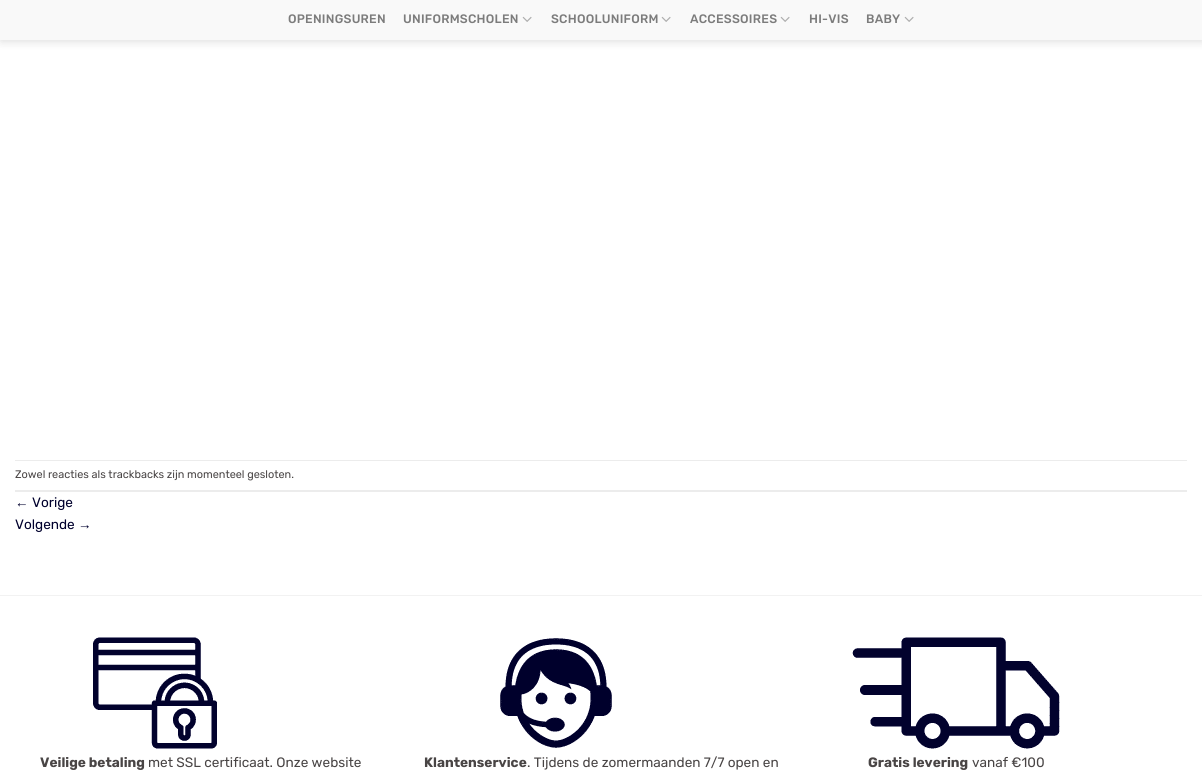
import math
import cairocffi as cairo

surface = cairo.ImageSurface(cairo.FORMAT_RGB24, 1202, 770)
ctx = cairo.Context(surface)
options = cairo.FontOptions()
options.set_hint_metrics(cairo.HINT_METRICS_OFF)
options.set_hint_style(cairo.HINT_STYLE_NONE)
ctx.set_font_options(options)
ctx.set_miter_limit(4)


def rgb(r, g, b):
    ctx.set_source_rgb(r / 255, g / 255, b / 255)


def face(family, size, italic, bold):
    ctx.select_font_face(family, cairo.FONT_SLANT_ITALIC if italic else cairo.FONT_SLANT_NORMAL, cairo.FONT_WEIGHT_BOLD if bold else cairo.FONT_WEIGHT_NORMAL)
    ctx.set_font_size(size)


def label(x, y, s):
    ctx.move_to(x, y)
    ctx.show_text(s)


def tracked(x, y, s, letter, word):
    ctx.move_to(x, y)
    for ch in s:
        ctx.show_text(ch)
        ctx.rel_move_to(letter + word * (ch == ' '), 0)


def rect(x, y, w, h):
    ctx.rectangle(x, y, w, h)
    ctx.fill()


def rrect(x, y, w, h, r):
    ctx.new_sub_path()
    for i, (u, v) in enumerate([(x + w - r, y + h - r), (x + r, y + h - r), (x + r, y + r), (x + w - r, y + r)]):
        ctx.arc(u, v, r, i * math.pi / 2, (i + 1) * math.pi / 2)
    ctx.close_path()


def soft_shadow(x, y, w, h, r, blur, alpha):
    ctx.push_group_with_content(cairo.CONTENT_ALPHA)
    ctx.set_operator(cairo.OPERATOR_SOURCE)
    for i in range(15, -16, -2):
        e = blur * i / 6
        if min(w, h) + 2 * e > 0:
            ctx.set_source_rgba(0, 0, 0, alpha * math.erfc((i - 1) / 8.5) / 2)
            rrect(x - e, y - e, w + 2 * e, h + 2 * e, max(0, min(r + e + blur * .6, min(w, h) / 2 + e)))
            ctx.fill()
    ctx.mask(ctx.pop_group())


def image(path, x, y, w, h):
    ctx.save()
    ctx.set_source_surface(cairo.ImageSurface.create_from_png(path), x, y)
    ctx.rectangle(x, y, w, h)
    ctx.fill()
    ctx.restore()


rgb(255, 255, 255)
ctx.paint()
rgb(0, 0, 0)
soft_shadow(1, 1, 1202, 40, 0, 5, 0.15)
rgb(249, 249, 249)
rect(0, 0, 1202, 40)
face('Rubik Medium', 12.25, 0, 0)
rgb(124, 124, 124)
tracked(288, 23, 'OPENINGSUREN', 0.25, 0)
tracked(403, 23, 'UNIFORMSCHOLEN', 0.25, 0)
image('image0.png', 522, 16, 10, 6)
tracked(551, 23, 'SCHOOLUNIFORM', 0.25, 0)
image('image0.png', 661, 16, 10, 6)
tracked(690, 23, 'ACCESSOIRES', 0.25, 0)
image('image0.png', 780, 16, 10, 6)
tracked(809, 23, 'HI-VIS', 0.25, 0)
tracked(866, 23, 'BABY', 0.25, 0)
image('image0.png', 904, 16, 10, 6)
rgb(236, 236, 236)
rect(15, 460, 1172, 1)
rect(15, 490, 1172, 2)
face('Rubik', 10.9, 0, 0)
rgb(73, 69, 69)
label(15, 478, 'Zowel reacties als trackbacks zijn momenteel gesloten.')
face('Liberation Sans', 13.6, 0, 0)
rgb(0, 0, 45)
label(15, 507, '←')
face('Rubik', 13.6, 0, 0)
label(32, 507, 'Vorige')
label(15, 529, 'Volgende')
face('Liberation Sans', 13.6, 0, 0)
label(78, 529, '→')
rgb(242, 242, 242)
rect(0, 595, 1202, 1)
image('image1.png', 93, 637, 124, 112)
face('Rubik', 13.6, 0, 1)
rgb(73, 69, 69)
label(40, 767, 'Veilige betaling')
face('Rubik', 13.6, 0, 0)
label(148, 767, 'met SSL certificaat. Onze website')
image('image2.png', 500, 638, 112, 110)
face('Rubik', 13.6, 0, 1)
label(424, 767, 'Klantenservice')
face('Rubik', 13.6, 0, 0)
label(527, 767, '. Tijdens de zomermaanden 7/7 open en')
image('image3.png', 852, 637, 208, 112)
face('Rubik', 13.6, 0, 1)
label(868, 767, 'Gratis levering')
face('Rubik', 13.6, 0, 0)
label(972, 767, 'vanaf €100')
surface.write_to_png('render.png')
